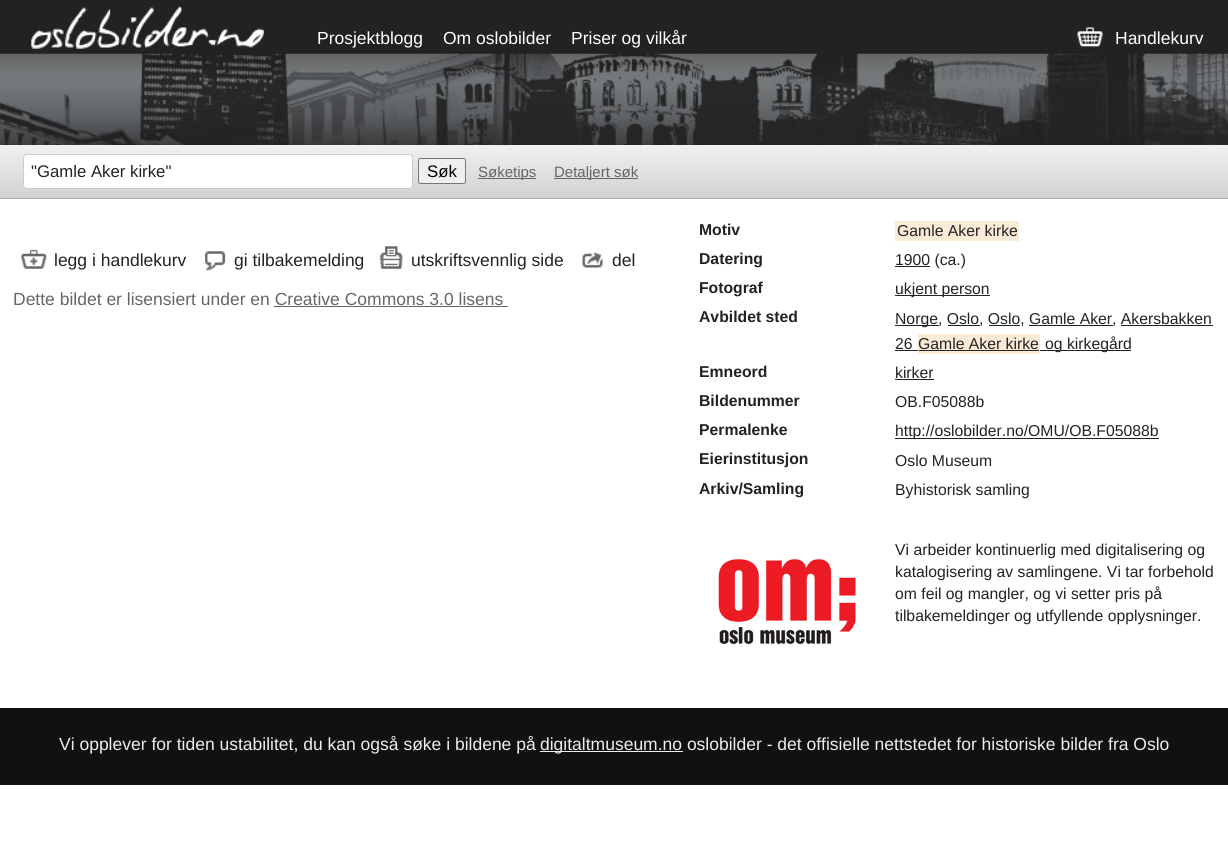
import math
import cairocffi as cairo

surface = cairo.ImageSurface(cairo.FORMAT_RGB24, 1228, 841)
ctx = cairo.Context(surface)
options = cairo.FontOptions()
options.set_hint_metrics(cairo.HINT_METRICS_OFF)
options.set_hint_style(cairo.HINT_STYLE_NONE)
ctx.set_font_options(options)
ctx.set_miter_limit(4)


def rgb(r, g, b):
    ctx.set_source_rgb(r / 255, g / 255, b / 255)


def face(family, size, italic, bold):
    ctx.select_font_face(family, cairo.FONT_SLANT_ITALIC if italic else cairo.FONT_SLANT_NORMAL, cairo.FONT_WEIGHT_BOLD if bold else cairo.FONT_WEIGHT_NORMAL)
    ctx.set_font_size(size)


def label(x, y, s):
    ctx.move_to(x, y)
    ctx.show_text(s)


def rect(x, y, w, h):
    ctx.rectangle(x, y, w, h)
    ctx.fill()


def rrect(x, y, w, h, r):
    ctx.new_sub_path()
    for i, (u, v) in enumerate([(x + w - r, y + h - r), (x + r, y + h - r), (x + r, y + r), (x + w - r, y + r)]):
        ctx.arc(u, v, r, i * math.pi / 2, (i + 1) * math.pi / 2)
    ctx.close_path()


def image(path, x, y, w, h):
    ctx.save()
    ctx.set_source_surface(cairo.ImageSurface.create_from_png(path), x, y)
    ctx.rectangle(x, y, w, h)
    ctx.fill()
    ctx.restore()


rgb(255, 255, 255)
ctx.paint()
rgb(34, 34, 34)
rect(0, 0, 1228, 54)
image('image0.png', 0, 53, 1228, 92)
image('image1.png', 31, 6, 234, 43)
face('Liberation Sans', 17.5, 0, 0)
rgb(255, 255, 255)
label(317, 44, 'Prosjektblogg')
label(443, 44, 'Om oslobilder')
label(571, 44, 'Priser og vilkår')
image('image2.png', 1077, 27, 26, 20)
label(1115, 44, 'Handlekurv')
gradient = cairo.LinearGradient(614, 145, 614, 198)
gradient.add_color_stop_rgba(0, 0.945, 0.945, 0.945, 1)
gradient.add_color_stop_rgba(1, 0.82, 0.82, 0.82, 1)
ctx.set_source(gradient)
rect(0, 145, 1228, 53)
rgb(170, 170, 170)
rect(0, 198, 1228, 1)
rgb(255, 255, 255)
rrect(23.5, 154.5, 389, 34, 3.5)
ctx.fill_preserve()
rgb(204, 204, 204)
ctx.set_line_width(1)
ctx.stroke()
face('Liberation Sans', 16.75, 0, 0)
rgb(34, 34, 34)
label(31, 177, '"Gamle Aker kirke"')
rgb(239, 239, 239)
rrect(418.5, 158.5, 47, 25, 2)
ctx.fill_preserve()
rgb(118, 118, 118)
ctx.stroke()
rgb(0, 0, 0)
label(427, 177, 'Søk')
rgb(102, 102, 102)
rect(478, 178, 58, 1)
face('Liberation Sans', 15, 0, 0)
label(478, 177, 'Søketips')
rect(554, 178, 84, 1)
label(554, 177, 'Detaljert søk')
image('image3.png', 21, 249, 26, 20)
face('Liberation Sans', 17.5, 0, 0)
rgb(34, 34, 34)
label(54, 266, 'legg i handlekurv')
image('image4.png', 204, 251, 22, 20)
label(234, 266, 'gi tilbakemelding')
image('image5.png', 379, 246, 24, 23)
label(411, 266, 'utskriftsvennlig side')
image('image6.png', 582, 252, 21, 16)
label(612, 266, 'del')
rgb(102, 102, 102)
label(13, 305, 'Dette bildet er lisensiert under en Creative Commons 3.0 lisens')
rect(274, 306, 234, 1)
face('Liberation Sans', 15.75, 0, 1)
rgb(34, 34, 34)
label(699, 235, 'Motiv')
rgb(250, 235, 215)
rect(895, 221, 124, 20)
face('Liberation Sans', 15.75, 0, 0)
rgb(34, 34, 34)
label(897, 236, 'Gamle Aker kirke')
face('Liberation Sans', 15.75, 0, 1)
label(699, 264, 'Datering')
rect(895, 266, 35, 1)
face('Liberation Sans', 15.75, 0, 0)
label(895, 265, '1900 (ca.)')
face('Liberation Sans', 15.75, 0, 1)
label(699, 293, 'Fotograf')
rect(895, 295, 95, 1)
face('Liberation Sans', 15.75, 0, 0)
label(895, 294, 'ukjent person')
face('Liberation Sans', 15.75, 0, 1)
label(699, 322, 'Avbildet sted')
rect(895, 325, 44, 1)
face('Liberation Sans', 15.75, 0, 0)
label(895, 324, 'Norge, Oslo, Oslo, Gamle Aker, Akersbakken')
rect(948, 325, 32, 1)
rect(989, 325, 31, 1)
rect(1029, 325, 84, 1)
label(895, 349, '26')
rect(895, 350, 23, 1)
rgb(250, 235, 215)
rect(918, 334, 122, 20)
rgb(34, 34, 34)
label(918, 349, 'Gamle Aker kirke')
rect(919, 350, 120, 1)
rect(1040, 350, 91, 1)
label(1045, 349, 'og kirkegård')
rect(1121, 325, 92, 1)
face('Liberation Sans', 15.75, 0, 1)
label(699, 377, 'Emneord')
face('Liberation Sans', 15.75, 0, 0)
label(895, 378, 'kirker')
rect(895, 379, 39, 1)
face('Liberation Sans', 15.75, 0, 1)
label(699, 406, 'Bildenummer')
face('Liberation Sans', 15.75, 0, 0)
label(895, 407, 'OB.F05088b')
face('Liberation Sans', 15.75, 0, 1)
label(699, 435, 'Permalenke')
rect(895, 438, 264, 1)
face('Liberation Sans', 15.75, 0, 0)
label(895, 436, 'http://oslobilder.no/OMU/OB.F05088b')
face('Liberation Sans', 15.75, 0, 1)
label(699, 464, 'Eierinstitusjon')
face('Liberation Sans', 15.75, 0, 0)
label(895, 466, 'Oslo Museum')
face('Liberation Sans', 15.75, 0, 1)
label(699, 494, 'Arkiv/Samling')
face('Liberation Sans', 15.75, 0, 0)
label(895, 495, 'Byhistorisk samling')
image('image7.png', 718, 558, 138, 87)
label(895, 555, 'Vi arbeider kontinuerlig med digitalisering og')
label(895, 577, 'katalogisering av samlingene. Vi tar forbehold')
label(895, 599, 'om feil og mangler, og vi setter pris på')
label(895, 621, 'tilbakemeldinger og utfyllende opplysninger.')
rgb(17, 17, 17)
rect(0, 708, 1228, 77)
face('Liberation Sans', 17.5, 0, 0)
rgb(238, 238, 238)
label(59, 750, 'Vi opplever for tiden ustabilitet, du kan også søke i bildene på')
rect(540, 751, 143, 1)
label(540, 750, 'digitaltmuseum.no oslobilder - det offisielle nettstedet for historiske bilder fra Oslo')
surface.write_to_png('render.png')
